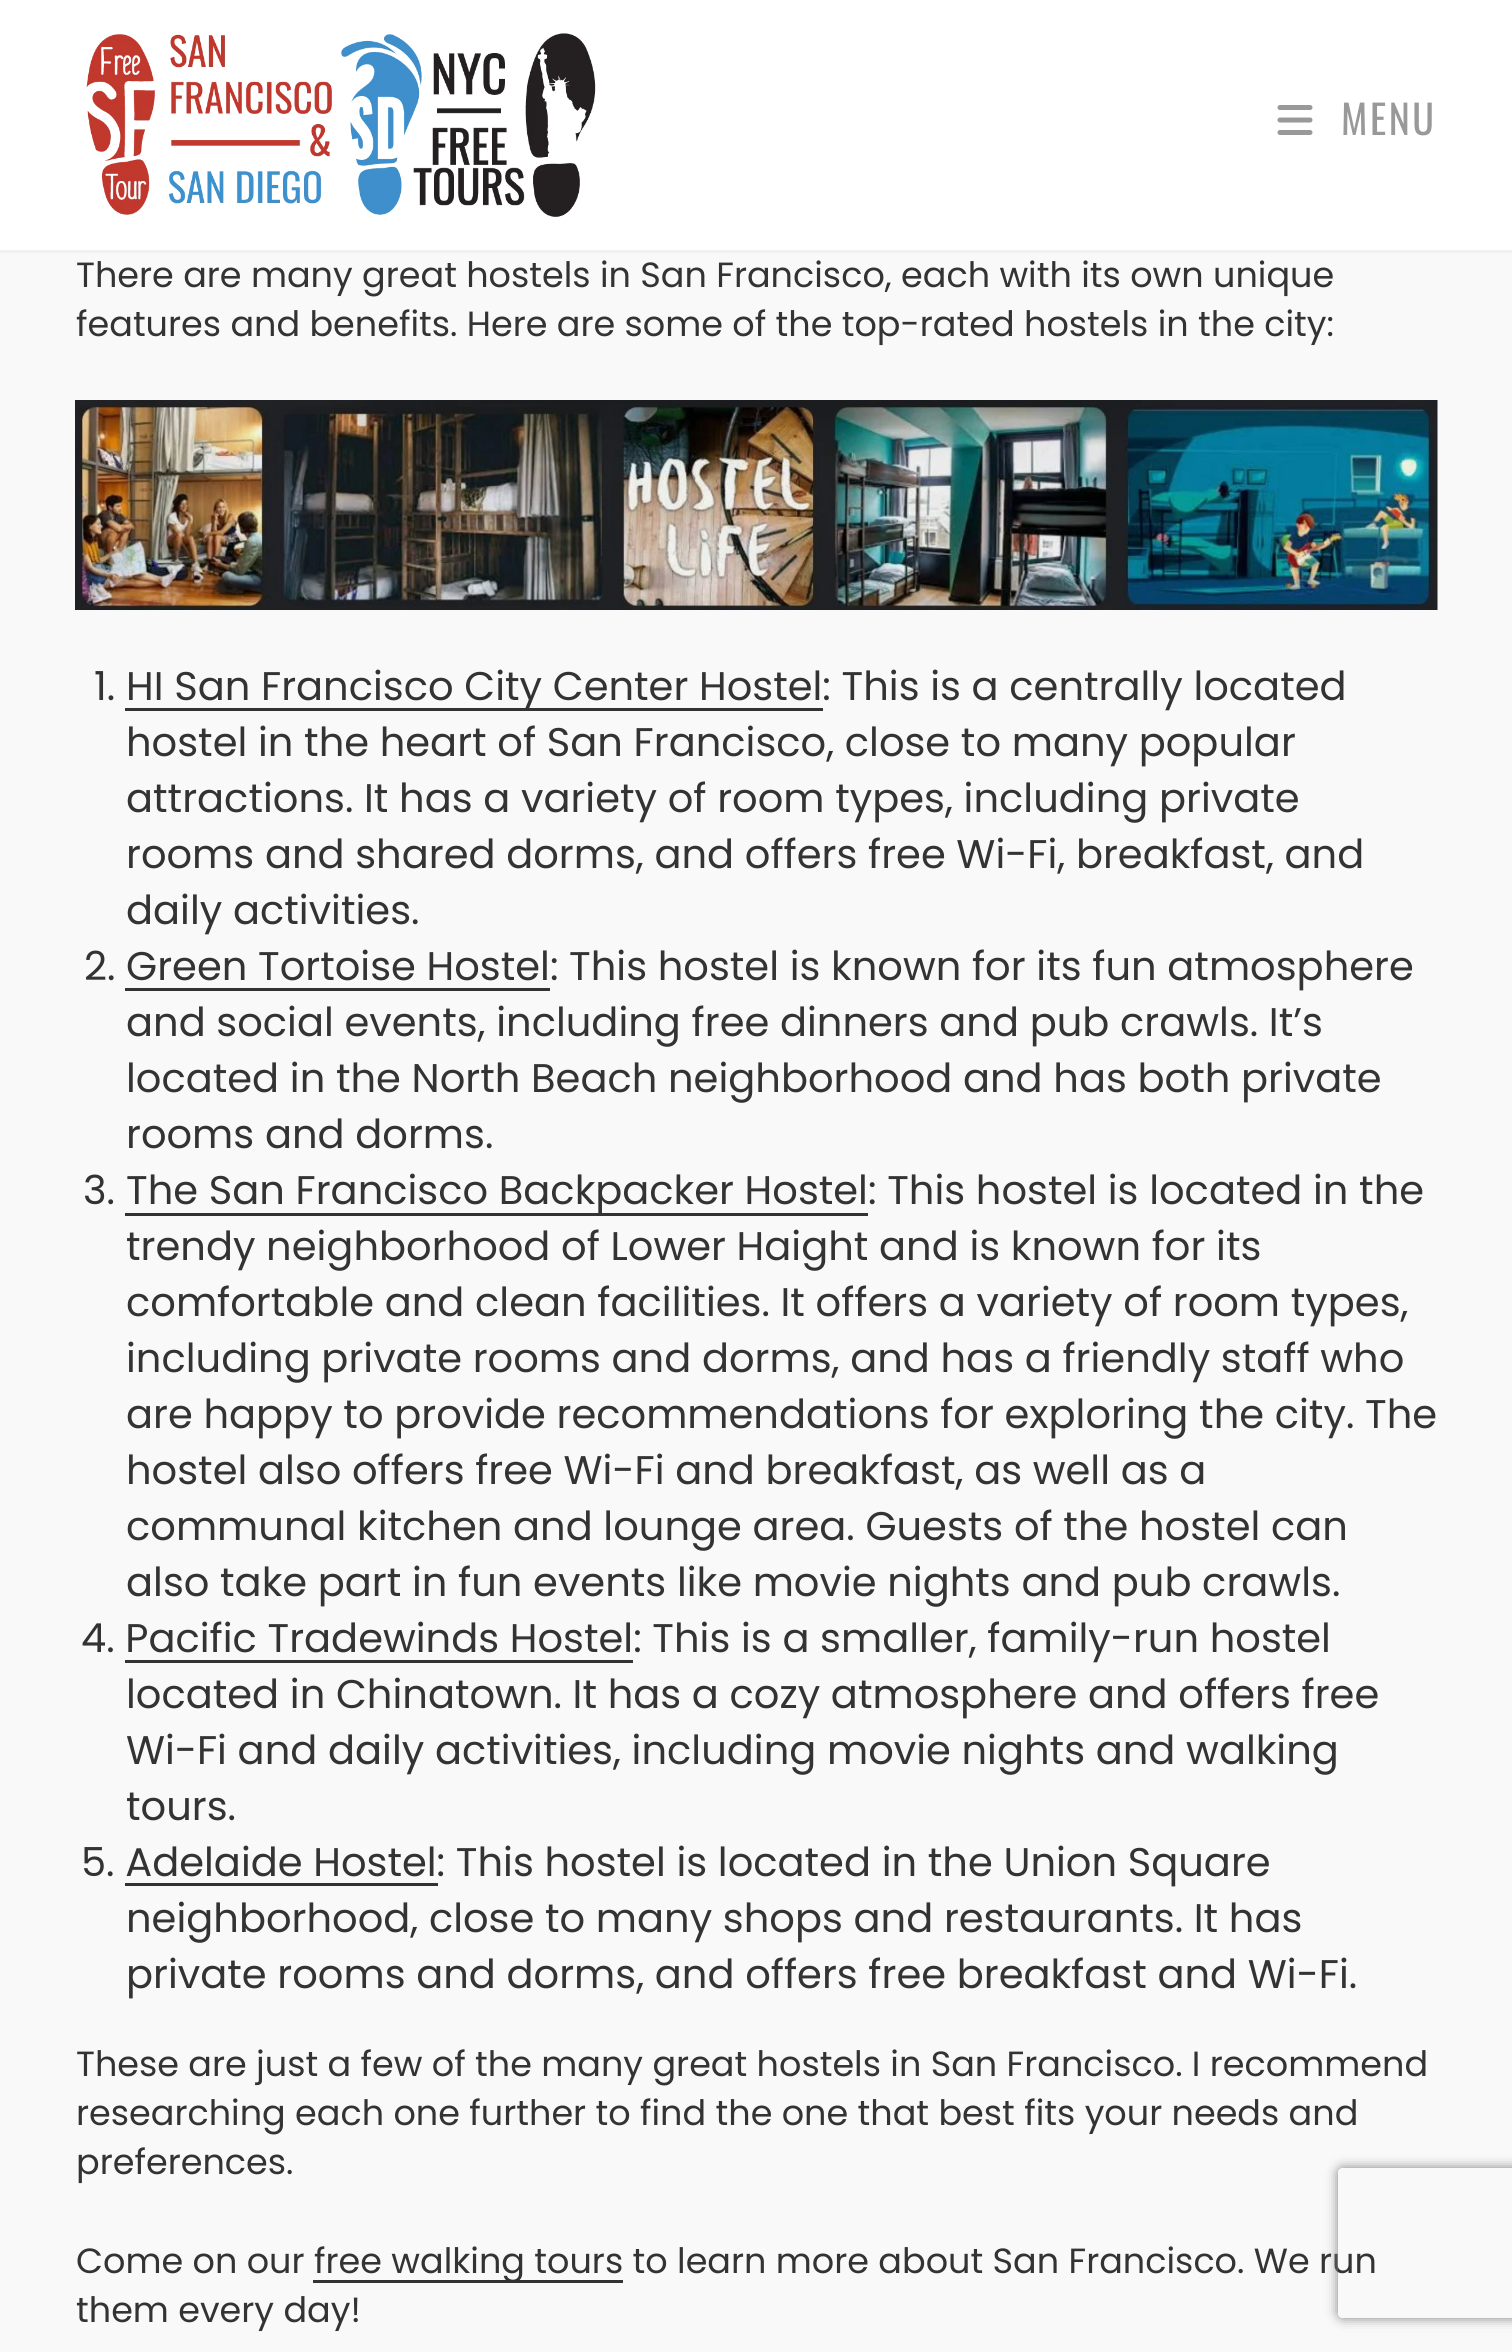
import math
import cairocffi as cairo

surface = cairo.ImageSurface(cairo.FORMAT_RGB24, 1512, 2352)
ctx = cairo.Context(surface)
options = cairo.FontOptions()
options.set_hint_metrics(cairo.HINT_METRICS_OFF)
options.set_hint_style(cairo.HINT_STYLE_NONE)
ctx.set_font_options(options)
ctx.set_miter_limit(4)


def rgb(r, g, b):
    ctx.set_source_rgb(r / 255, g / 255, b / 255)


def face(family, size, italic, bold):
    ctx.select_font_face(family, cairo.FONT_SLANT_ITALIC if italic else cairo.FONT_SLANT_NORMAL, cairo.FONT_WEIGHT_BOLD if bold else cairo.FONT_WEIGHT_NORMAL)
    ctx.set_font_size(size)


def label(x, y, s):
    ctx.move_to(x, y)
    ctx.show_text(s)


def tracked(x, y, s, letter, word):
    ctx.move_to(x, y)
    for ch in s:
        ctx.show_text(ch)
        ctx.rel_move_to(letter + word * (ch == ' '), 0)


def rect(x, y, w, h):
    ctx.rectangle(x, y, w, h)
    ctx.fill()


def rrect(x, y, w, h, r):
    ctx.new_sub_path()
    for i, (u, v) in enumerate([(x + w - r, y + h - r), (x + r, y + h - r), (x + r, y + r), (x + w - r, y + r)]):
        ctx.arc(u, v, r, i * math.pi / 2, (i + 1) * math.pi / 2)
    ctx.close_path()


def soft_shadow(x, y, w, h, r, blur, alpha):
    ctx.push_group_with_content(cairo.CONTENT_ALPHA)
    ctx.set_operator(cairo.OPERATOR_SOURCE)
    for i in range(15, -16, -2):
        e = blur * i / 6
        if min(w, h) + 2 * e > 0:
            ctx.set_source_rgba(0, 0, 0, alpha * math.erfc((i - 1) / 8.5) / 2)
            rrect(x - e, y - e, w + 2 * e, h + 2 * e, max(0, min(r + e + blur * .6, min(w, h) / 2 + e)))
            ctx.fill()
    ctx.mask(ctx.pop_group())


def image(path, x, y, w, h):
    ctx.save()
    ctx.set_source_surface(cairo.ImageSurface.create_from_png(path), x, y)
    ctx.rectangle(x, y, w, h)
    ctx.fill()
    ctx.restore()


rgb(249, 249, 249)
ctx.paint()
rgb(255, 255, 255)
rect(0, 0, 1512, 250)
rgb(241, 241, 241)
rect(0, 250, 1512, 3)
image('image0.png', 86, 33, 510, 184)
image('image1.png', 1277, 105, 36, 30)
face('Oswald', 40, 0, 0)
rgb(153, 153, 153)
tracked(1341, 135, 'MENU', 2.5, 0)
face('Poppins', 35, 0, 0)
rgb(51, 51, 51)
label(76, 287, 'There are many great hostels in San Francisco, each with its own unique')
label(76, 336, 'features and benefits. Here are some of the top-rated hostels in the city:')
image('image2.png', 75, 400, 1363, 210)
face('Poppins', 40, 0, 0)
label(94, 700, '1.')
rect(125, 708, 698, 3)
label(126, 700, 'HI San Francisco City Center Hostel: This is a centrally located')
label(126, 756, 'hostel in the heart of San Francisco, close to many popular')
label(126, 812, 'attractions. It has a variety of room types, including private')
label(126, 868, 'rooms and shared dorms, and offers free Wi-Fi, breakfast, and')
label(126, 924, 'daily activities.')
label(84, 980, '2. Green Tortoise Hostel: This hostel is known for its fun atmosphere')
rect(125, 988, 425, 3)
label(126, 1036, 'and social events, including free dinners and pub crawls. It’s')
label(126, 1092, 'located in the North Beach neighborhood and has both private')
label(126, 1148, 'rooms and dorms.')
label(83, 1204, '3.')
rect(125, 1213, 743, 3)
label(126, 1204, 'The San Francisco Backpacker Hostel: This hostel is located in the')
label(126, 1260, 'trendy neighborhood of Lower Haight and is known for its')
label(126, 1316, 'comfortable and clean facilities. It offers a variety of room types,')
label(126, 1372, 'including private rooms and dorms, and has a friendly staff who')
label(126, 1428, 'are happy to provide recommendations for exploring the city. The')
label(126, 1484, 'hostel also offers free Wi-Fi and breakfast, as well as a')
label(126, 1540, 'communal kitchen and lounge area. Guests of the hostel can')
label(126, 1596, 'also take part in fun events like movie nights and pub crawls.')
label(81, 1652, '4. Pacific Tradewinds Hostel: This is a smaller, family-run hostel')
rect(125, 1660, 508, 3)
label(126, 1708, 'located in Chinatown. It has a cozy atmosphere and offers free')
label(126, 1764, 'Wi-Fi and daily activities, including movie nights and walking')
label(126, 1820, 'tours.')
label(81, 1876, '5. Adelaide Hostel: This hostel is located in the Union Square')
rect(125, 1883, 313, 3)
label(126, 1932, 'neighborhood, close to many shops and restaurants. It has')
label(126, 1988, 'private rooms and dorms, and offers free breakfast and Wi-Fi.')
face('Poppins', 35, 0, 0)
label(76, 2076, 'These are just a few of the many great hostels in San Francisco. I recommend')
label(76, 2125, 'researching each one further to find the one that best fits your needs and')
label(76, 2174, 'preferences.')
label(76, 2273, 'Come on our')
rect(313, 2280, 310, 3)
label(314, 2273, 'free walking tours to learn more about San Francisco. We run')
label(76, 2322, 'them every day!')
ctx.save()
ctx.set_fill_rule(cairo.FILL_RULE_EVEN_ODD)
ctx.new_path()
ctx.move_to(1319, 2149)
ctx.line_to(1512, 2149)
ctx.line_to(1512, 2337)
ctx.line_to(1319, 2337)
ctx.close_path()
ctx.move_to(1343, 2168)
ctx.line_to(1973, 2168)
ctx.curve_to(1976, 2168, 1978, 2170, 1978, 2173)
ctx.line_to(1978, 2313)
ctx.curve_to(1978, 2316, 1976, 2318, 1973, 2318)
ctx.line_to(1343, 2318)
ctx.curve_to(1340, 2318, 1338, 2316, 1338, 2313)
ctx.line_to(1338, 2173)
ctx.curve_to(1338, 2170, 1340, 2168, 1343, 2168)
ctx.close_path()
ctx.clip()
rgb(128, 128, 128)
soft_shadow(1338, 2168, 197, 150, 5, 6, 1)
ctx.restore()
surface.write_to_png('render.png')
